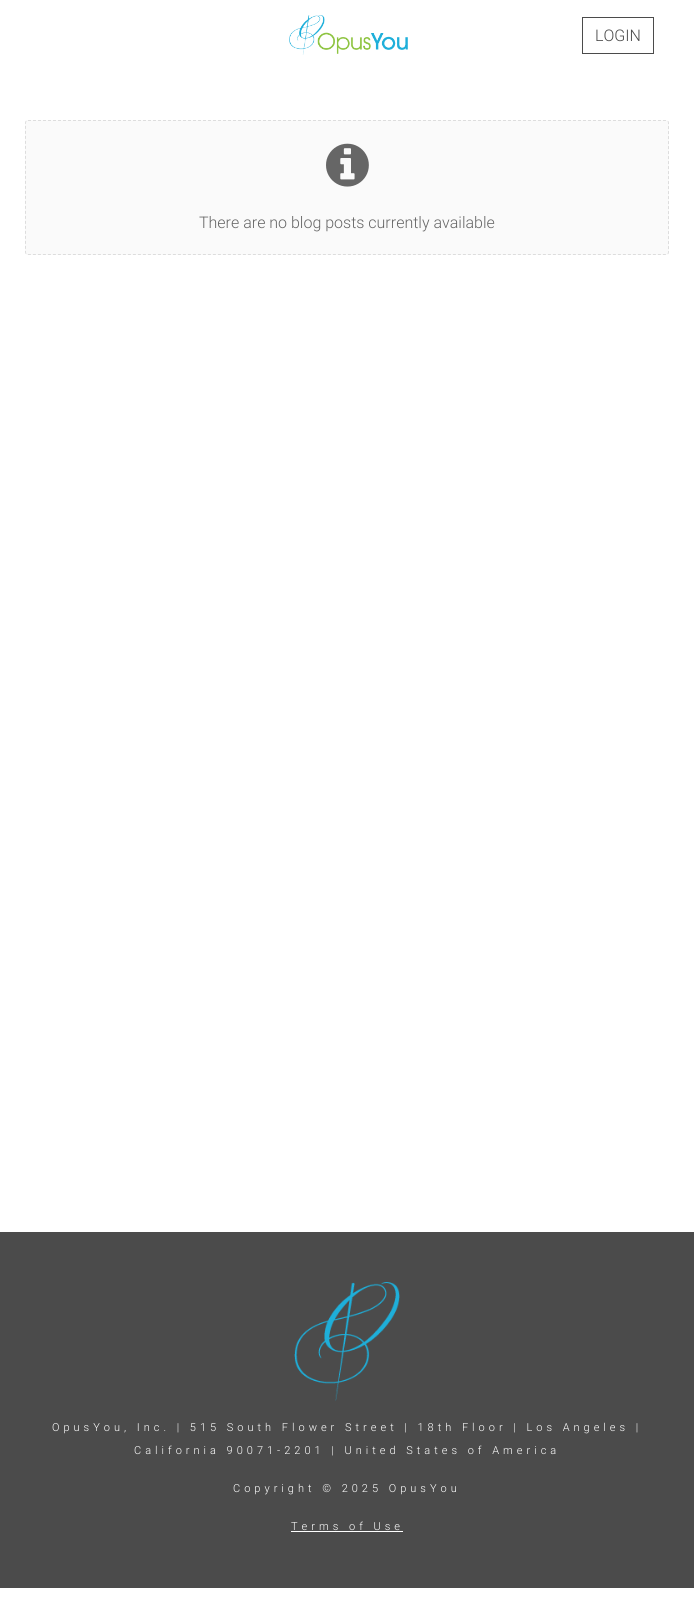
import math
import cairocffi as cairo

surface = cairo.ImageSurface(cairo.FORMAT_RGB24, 694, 1603)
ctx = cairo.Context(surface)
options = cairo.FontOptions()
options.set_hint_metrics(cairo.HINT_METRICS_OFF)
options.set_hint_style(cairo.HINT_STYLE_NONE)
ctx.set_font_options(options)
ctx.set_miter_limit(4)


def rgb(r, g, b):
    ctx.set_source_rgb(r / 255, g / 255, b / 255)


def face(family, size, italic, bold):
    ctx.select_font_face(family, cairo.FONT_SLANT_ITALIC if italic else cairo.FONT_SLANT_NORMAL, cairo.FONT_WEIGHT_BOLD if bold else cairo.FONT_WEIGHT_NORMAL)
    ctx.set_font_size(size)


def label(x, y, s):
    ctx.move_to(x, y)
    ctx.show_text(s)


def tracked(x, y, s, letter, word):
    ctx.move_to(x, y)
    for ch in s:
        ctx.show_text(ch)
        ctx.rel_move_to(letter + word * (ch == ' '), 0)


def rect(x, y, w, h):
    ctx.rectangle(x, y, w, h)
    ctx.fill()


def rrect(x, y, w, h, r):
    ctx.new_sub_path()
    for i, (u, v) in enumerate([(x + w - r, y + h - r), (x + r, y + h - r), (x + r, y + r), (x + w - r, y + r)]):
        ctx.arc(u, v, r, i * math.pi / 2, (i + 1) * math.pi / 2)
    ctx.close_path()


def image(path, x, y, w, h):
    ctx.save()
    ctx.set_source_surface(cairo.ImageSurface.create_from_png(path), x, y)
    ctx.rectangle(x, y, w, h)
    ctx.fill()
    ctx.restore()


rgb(255, 255, 255)
ctx.paint()
image('image0.png', 289, 15, 119, 40)
ctx.rectangle(582.5, 17.5, 71, 36)
rgb(75, 75, 75)
ctx.set_line_width(1)
ctx.stroke()
face('Roboto Light', 16, 0, 0)
label(595, 41, 'LOGIN')
rgb(250, 250, 250)
rrect(25, 120, 644, 135, 3)
ctx.fill()
ctx.new_path()
ctx.move_to(28, 120.5)
ctx.line_to(666, 120.5)
ctx.curve_to(667.5, 120.5, 668.5, 121.5, 668.5, 123)
ctx.line_to(668.5, 252)
ctx.curve_to(668.5, 253.5, 667.5, 254.5, 666, 254.5)
ctx.line_to(28, 254.5)
ctx.curve_to(26.5, 254.5, 25.5, 253.5, 25.5, 252)
ctx.line_to(25.5, 123)
ctx.curve_to(25.5, 121.5, 26.5, 120.5, 28, 120.5)
ctx.close_path()
rgb(221, 221, 221)
ctx.set_dash([3, 2])
ctx.stroke()
image('image1.png', 326, 143, 43, 44)
rgb(102, 102, 102)
label(199, 228, 'There are no blog posts currently available')
rgb(75, 75, 75)
rect(0, 1232, 694, 356)
image('image2.png', 294, 1282, 106, 119)
face('Roboto Light', 11, 0, 0)
rgb(255, 255, 255)
tracked(52, 1431, 'OpusYou, Inc. | 515 South Flower Street | 18th Floor | Los Angeles |', 4, 0)
tracked(134, 1454, 'California 90071-2201 | United States of America', 4, 0)
tracked(233, 1492, 'Copyright © 2025 OpusYou', 4, 0)
tracked(291, 1530, 'Terms of Use', 4, 0)
rect(291, 1531, 112, 1)
surface.write_to_png('render.png')
